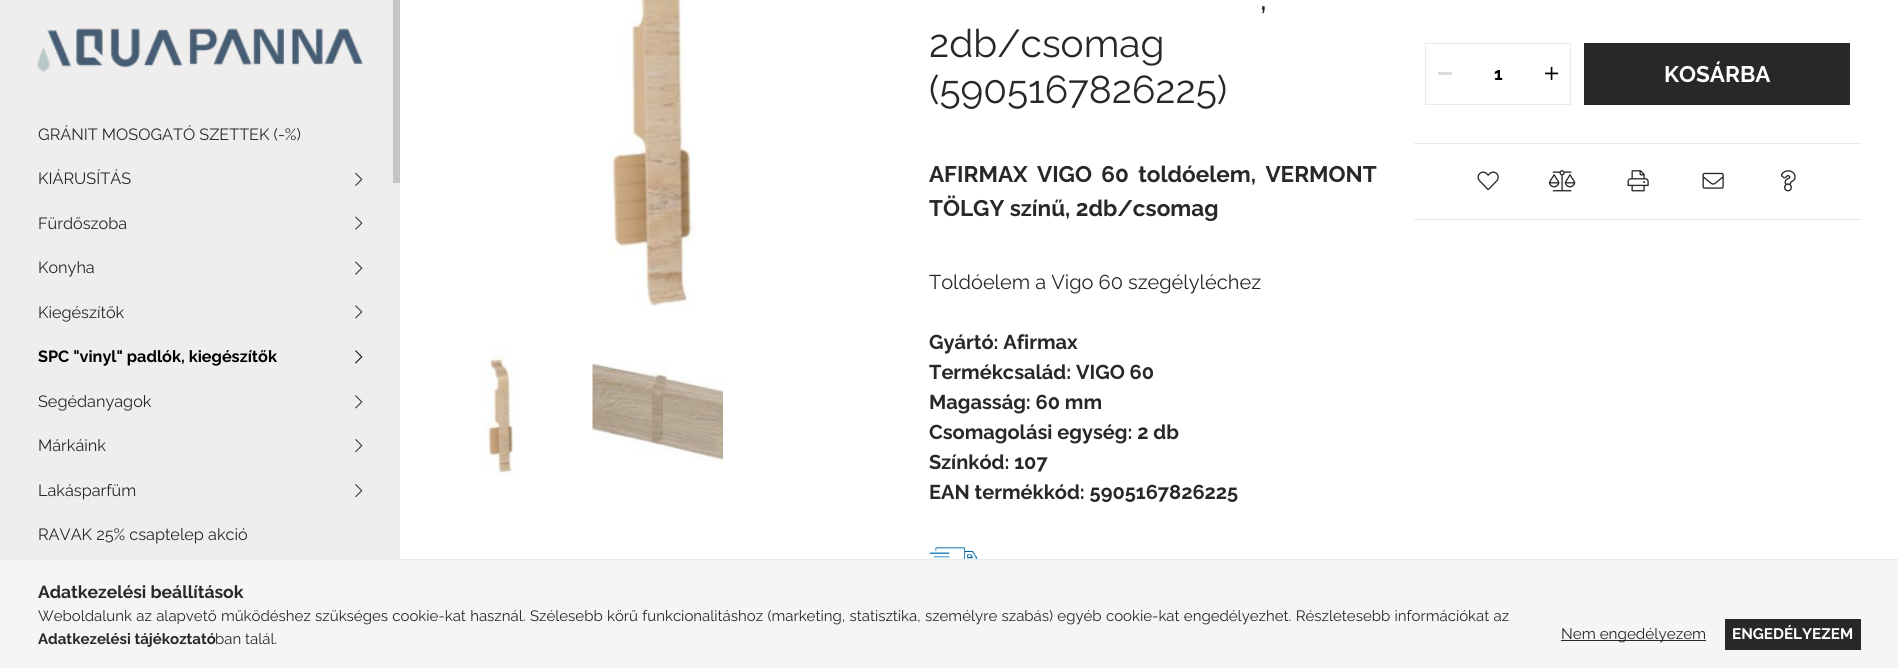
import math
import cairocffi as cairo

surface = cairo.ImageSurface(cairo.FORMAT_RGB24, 1898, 668)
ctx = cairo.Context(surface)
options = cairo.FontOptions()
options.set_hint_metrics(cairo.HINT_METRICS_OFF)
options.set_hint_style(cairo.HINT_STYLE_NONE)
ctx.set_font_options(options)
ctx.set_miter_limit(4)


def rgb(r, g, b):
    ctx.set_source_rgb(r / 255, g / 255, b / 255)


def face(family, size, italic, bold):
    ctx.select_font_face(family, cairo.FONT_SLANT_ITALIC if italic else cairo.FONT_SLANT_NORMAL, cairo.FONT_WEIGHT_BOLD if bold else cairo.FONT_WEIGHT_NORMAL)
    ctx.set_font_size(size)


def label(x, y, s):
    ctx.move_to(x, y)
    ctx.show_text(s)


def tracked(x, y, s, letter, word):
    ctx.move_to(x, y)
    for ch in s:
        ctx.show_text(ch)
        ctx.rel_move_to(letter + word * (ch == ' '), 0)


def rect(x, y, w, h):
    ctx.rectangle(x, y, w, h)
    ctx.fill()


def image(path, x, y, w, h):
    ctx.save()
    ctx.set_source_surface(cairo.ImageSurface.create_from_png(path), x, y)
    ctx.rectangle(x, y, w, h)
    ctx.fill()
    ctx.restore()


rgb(255, 255, 255)
ctx.paint()
rgb(238, 238, 238)
rect(0, 0, 400, 559)
rgb(197, 197, 197)
rect(393, 0, 7, 183)
image('image0.png', 37, 28, 326, 44)
face('Raleway', 16.25, 0, 0)
rgb(40, 40, 40)
label(38, 140, 'GRÁNIT MOSOGATÓ SZETTEK (-%)')
label(38, 184, 'KIÁRUSÍTÁS')
image('image1.png', 355, 172, 8, 14)
label(38, 229, 'Fürdőszoba')
image('image2.png', 355, 216, 8, 14)
label(38, 273, 'Konyha')
image('image2.png', 355, 261, 8, 14)
label(38, 318, 'Kiegészítők')
image('image3.png', 355, 305, 8, 14)
face('Raleway', 16.25, 0, 1)
rgb(0, 0, 0)
label(38, 362, 'SPC "vinyl" padlók, kiegészítők')
image('image4.png', 355, 350, 8, 14)
face('Raleway', 16.25, 0, 0)
rgb(40, 40, 40)
label(38, 407, 'Segédanyagok')
image('image3.png', 355, 395, 8, 14)
label(38, 451, 'Márkáink')
image('image5.png', 355, 439, 8, 14)
label(38, 496, 'Lakásparfüm')
image('image5.png', 355, 484, 8, 14)
label(38, 540, 'RAVAK 25% csaptelep akció')
image('image6.png', 608, 0, 89, 307)
image('image7.png', 483, 347, 31, 130)
image('image8.png', 592, 362, 131, 100)
face('Raleway', 38.75, 0, 0)
label(1259, 10, ',')
label(929, 57, '2db/csomag')
label(929, 103, '(5905167826225)')
face('Raleway', 22.5, 0, 1)
tracked(929, 182, 'AFIRMAX VIGO 60 toldóelem, VERMONT', 0, 4)
label(929, 216, 'TÖLGY színű, 2db/csomag')
face('Raleway', 20, 0, 0)
label(929, 289, 'Toldóelem a Vigo 60 szegélyléchez')
face('Raleway', 20, 0, 1)
label(929, 349, 'Gyártó: Afirmax')
label(929, 379, 'Termékcsalád: VIGO 60')
label(929, 409, 'Magasság: 60 mm')
label(929, 439, 'Csomagolási egység: 2 db')
label(929, 469, 'Színkód: 107')
label(929, 499, 'EAN termékkód: 5905167826225')
image('image9.png', 929, 547, 49, 12)
ctx.rectangle(1425.5, 43.5, 145, 61)
rgb(234, 234, 234)
ctx.set_line_width(1)
ctx.stroke()
rgb(221, 221, 221)
rect(1438, 72, 14, 3)
face('Raleway', 17.5, 0, 1)
rgb(0, 0, 0)
label(1494, 80, '1')
image('image10.png', 1545, 66, 14, 14)
rgb(40, 40, 40)
rect(1584, 43, 266, 62)
face('Raleway', 22.5, 0, 1)
rgb(255, 255, 255)
label(1664, 82, 'KOSÁRBA')
rgb(234, 234, 234)
rect(1414, 143, 447, 1)
image('image11.png', 1477, 171, 22, 20)
image('image12.png', 1548, 170, 28, 22)
image('image13.png', 1627, 170, 22, 22)
image('image14.png', 1702, 172, 22, 17)
image('image15.png', 1780, 170, 16, 22)
rect(1414, 219, 447, 1)
rgb(245, 245, 245)
rect(0, 560, 1898, 108)
rgb(234, 234, 234)
rect(0, 559, 1898, 1)
face('Raleway', 17.5, 0, 1)
rgb(40, 40, 40)
label(38, 598, 'Adatkezelési beállítások')
face('Raleway', 15, 0, 0)
tracked(38, 621, 'Weboldalunk az alapvető működéshez szükséges cookie-kat használ. Szélesebb körű funkcionalitáshoz (marketing, statisztika, személyre szabás) egyéb cookie-kat engedélyezhet. Részletesebb információkat az', 0, 0.5)
face('Raleway', 15, 0, 1)
label(38, 644, 'Adatkezelési tájékoztató')
face('Raleway', 15, 0, 0)
label(215, 644, 'ban talál.')
rect(1561, 640, 145, 1)
face('Raleway', 15.25, 0, 0)
label(1561, 639, 'Nem engedélyezem')
rect(1725, 619, 136, 31)
face('Raleway', 15.25, 0, 1)
rgb(255, 255, 255)
label(1732, 639, 'ENGEDÉLYEZEM')
surface.write_to_png('render.png')
